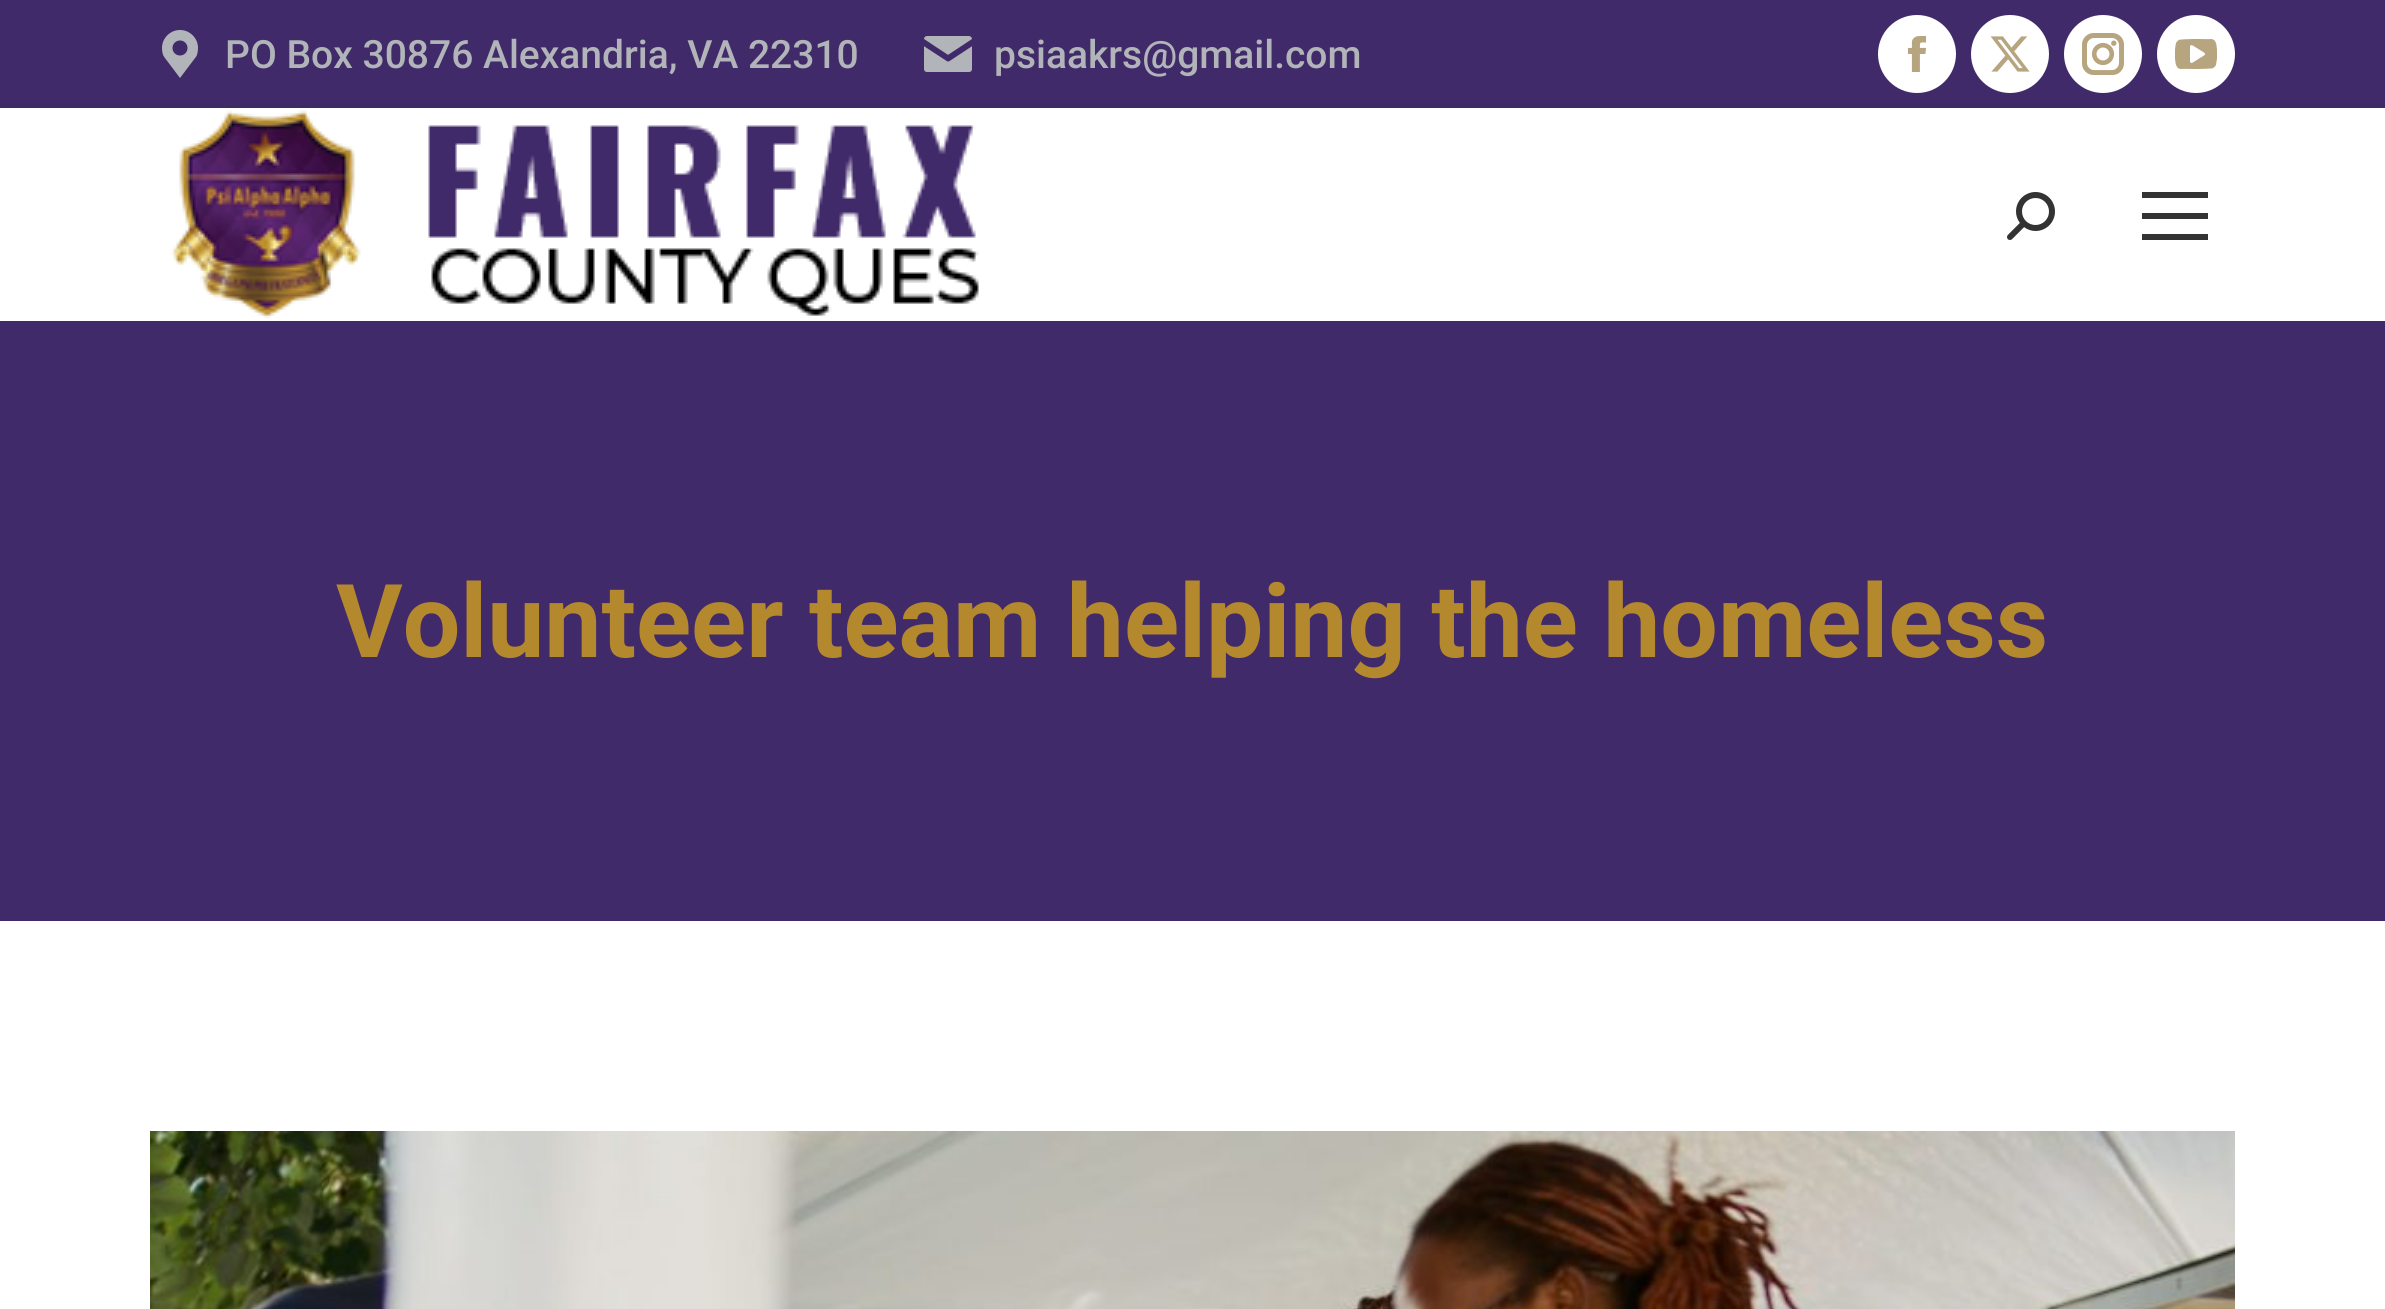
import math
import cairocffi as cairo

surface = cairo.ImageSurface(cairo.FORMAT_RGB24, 2385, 1309)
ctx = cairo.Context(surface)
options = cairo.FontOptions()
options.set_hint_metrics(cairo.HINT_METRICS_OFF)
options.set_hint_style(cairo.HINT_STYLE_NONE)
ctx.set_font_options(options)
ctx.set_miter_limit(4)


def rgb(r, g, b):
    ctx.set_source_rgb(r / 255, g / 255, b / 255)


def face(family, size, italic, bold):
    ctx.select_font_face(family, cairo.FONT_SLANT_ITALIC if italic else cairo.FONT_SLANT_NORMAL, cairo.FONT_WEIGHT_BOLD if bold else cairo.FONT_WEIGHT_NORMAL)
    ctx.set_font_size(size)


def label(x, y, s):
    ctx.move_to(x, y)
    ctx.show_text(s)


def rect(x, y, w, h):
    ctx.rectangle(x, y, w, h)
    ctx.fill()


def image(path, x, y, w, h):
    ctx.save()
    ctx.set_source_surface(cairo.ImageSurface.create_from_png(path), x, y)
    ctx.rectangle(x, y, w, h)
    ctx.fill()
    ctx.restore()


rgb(255, 255, 255)
ctx.paint()
rgb(65, 42, 105)
rect(0, 0, 2385, 105)
image('image0.png', 162, 30, 36, 48)
face('Roboto Medium', 39, 0, 0)
rgb(177, 180, 184)
label(225, 68, 'PO Box 30876 Alexandria, VA 22310')
image('image1.png', 924, 36, 48, 36)
label(994, 68, 'psiaakrs@gmail.com')
rgb(255, 255, 255)
ctx.new_path()
ctx.arc(1917, 54, 39, 0, 2 * math.pi)
ctx.fill()
image('image2.png', 1907, 36, 20, 36)
ctx.arc(2010, 54, 39, 0, 2 * math.pi)
ctx.fill()
image('image3.png', 1990, 36, 40, 36)
ctx.arc(2103, 54, 39, 0, 2 * math.pi)
ctx.fill()
image('image4.png', 2082, 33, 42, 42)
ctx.arc(2196, 54, 39, 0, 2 * math.pi)
ctx.fill()
image('image5.png', 2175, 39, 42, 30)
rgb(63, 43, 99)
rect(0, 105, 2385, 3)
image('image6.png', 170, 110, 809, 209)
image('image7.png', 2007, 192, 48, 48)
rgb(51, 51, 51)
rect(2142, 192, 66, 6)
rect(2142, 213, 66, 6)
rect(2142, 234, 66, 6)
rgb(65, 42, 105)
rect(0, 321, 2385, 600)
face('Roboto', 102, 0, 1)
rgb(180, 136, 45)
label(336, 657, 'Volunteer team helping the homeless')
image('image8.png', 150, 1131, 2085, 178)
surface.write_to_png('render.png')
